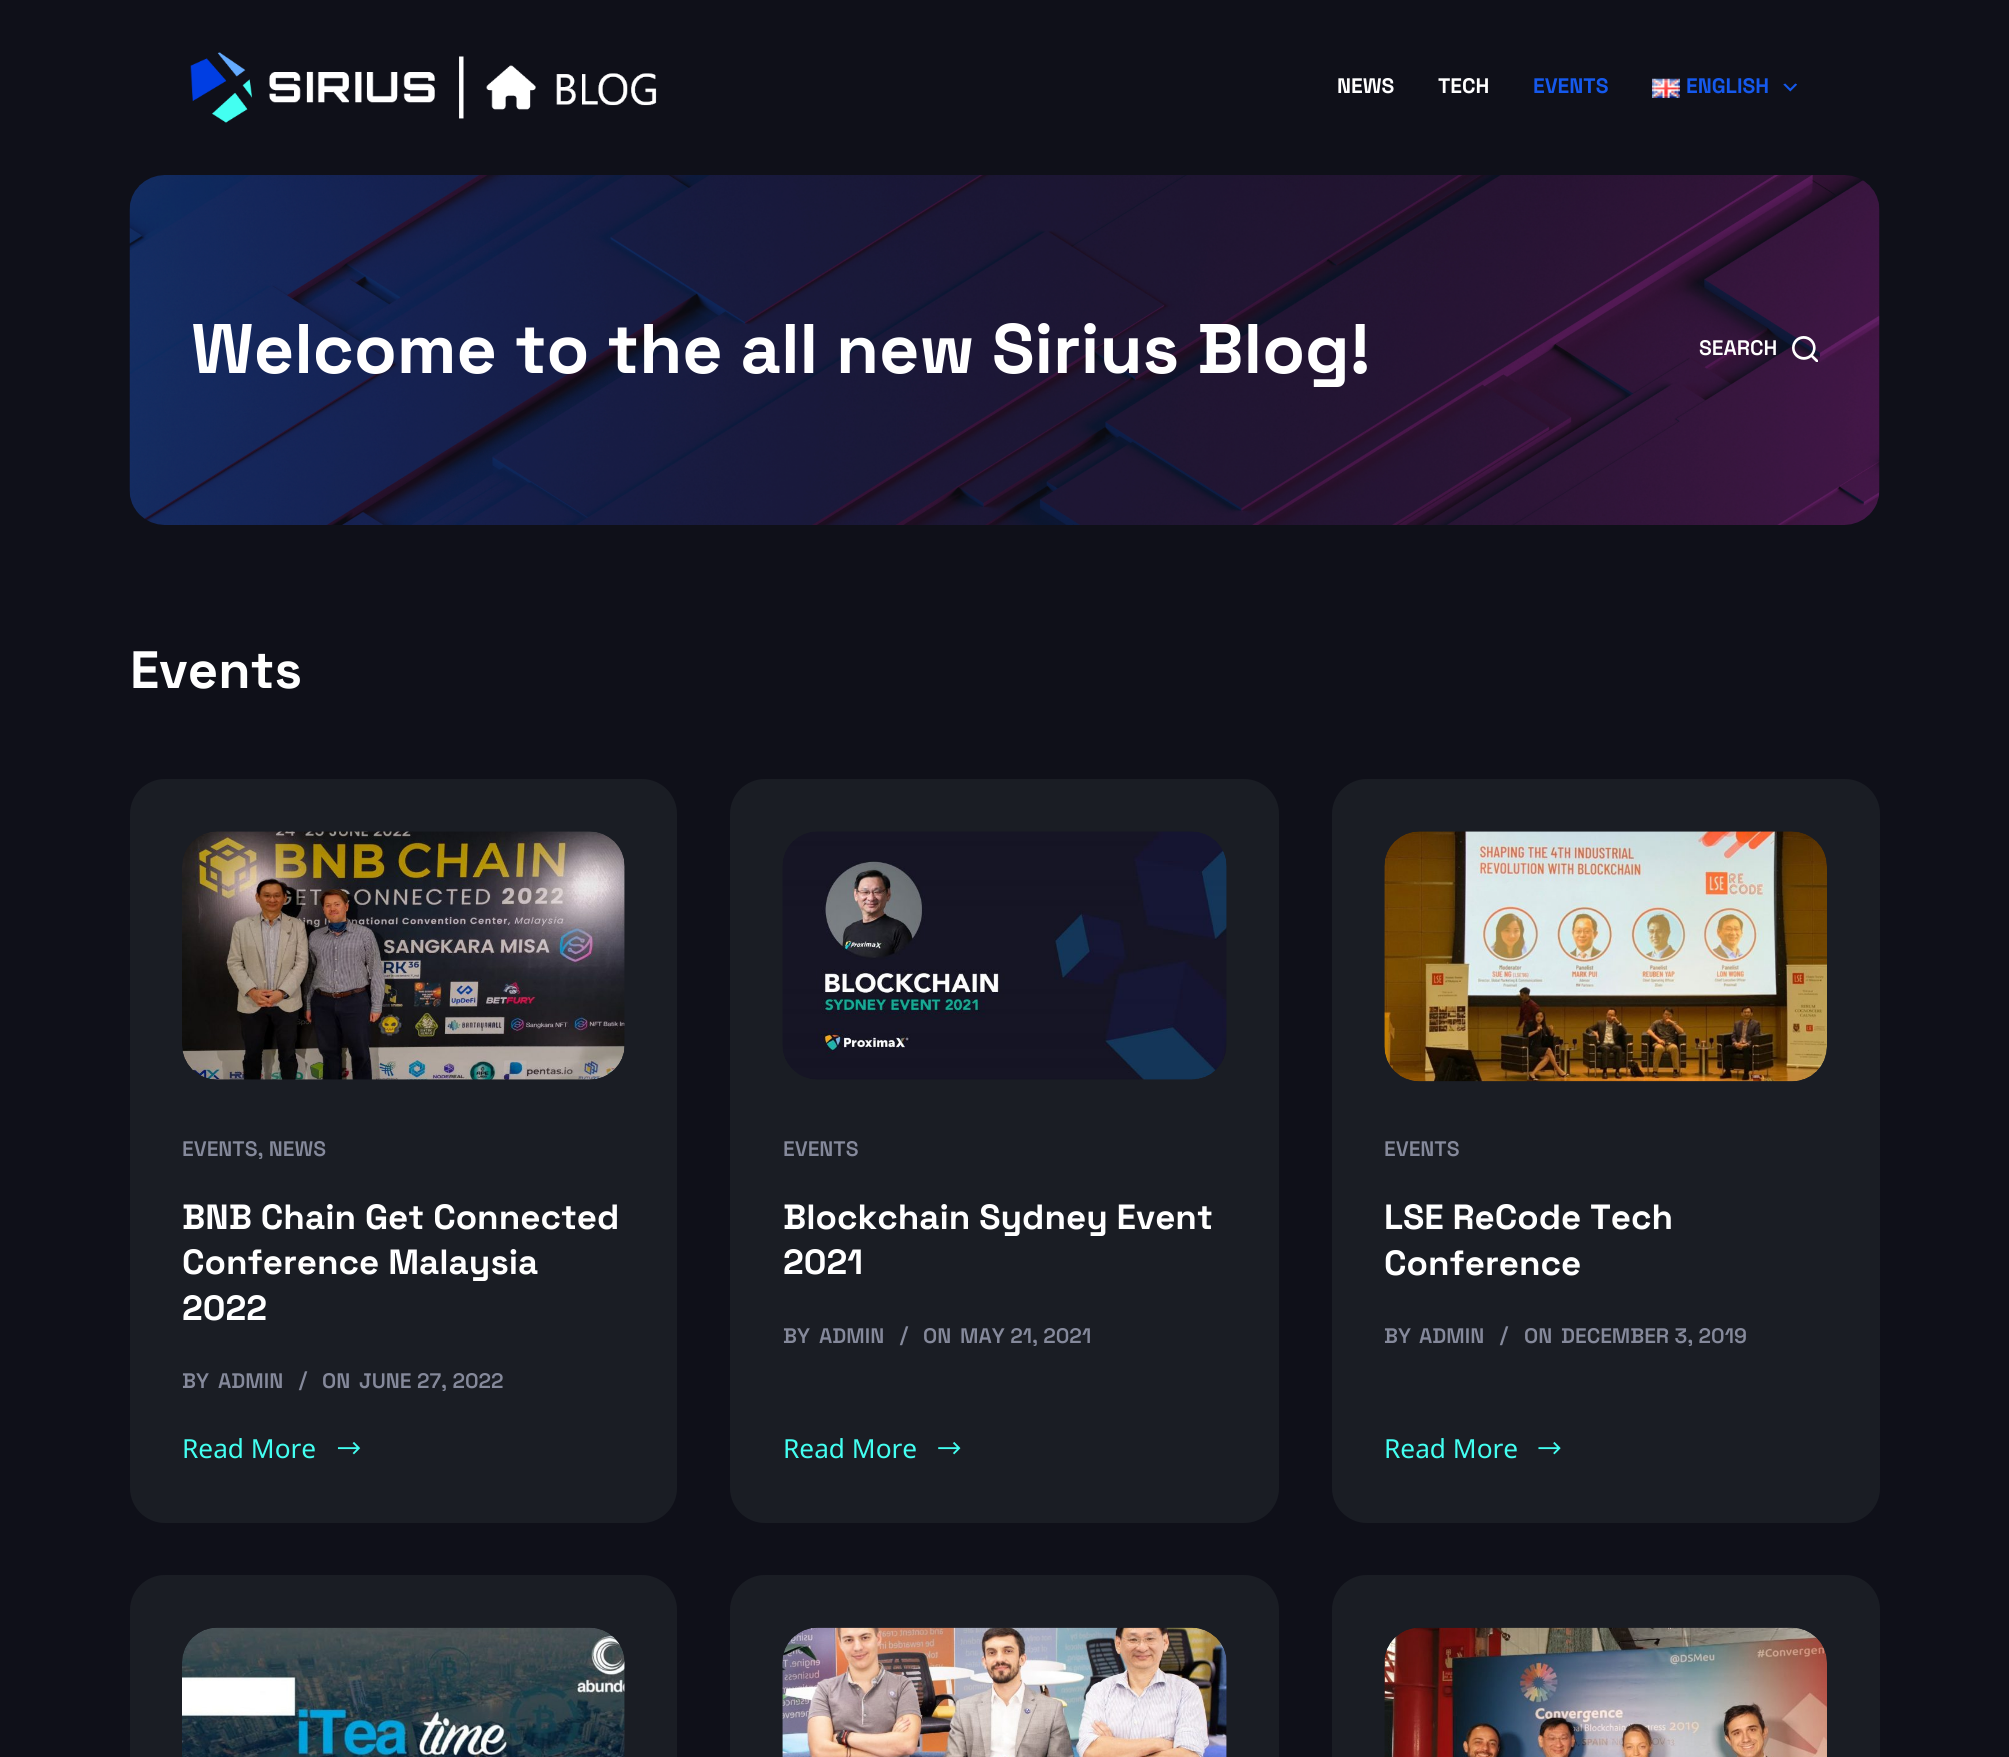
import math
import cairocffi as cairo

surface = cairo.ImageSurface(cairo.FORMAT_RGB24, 2009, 1757)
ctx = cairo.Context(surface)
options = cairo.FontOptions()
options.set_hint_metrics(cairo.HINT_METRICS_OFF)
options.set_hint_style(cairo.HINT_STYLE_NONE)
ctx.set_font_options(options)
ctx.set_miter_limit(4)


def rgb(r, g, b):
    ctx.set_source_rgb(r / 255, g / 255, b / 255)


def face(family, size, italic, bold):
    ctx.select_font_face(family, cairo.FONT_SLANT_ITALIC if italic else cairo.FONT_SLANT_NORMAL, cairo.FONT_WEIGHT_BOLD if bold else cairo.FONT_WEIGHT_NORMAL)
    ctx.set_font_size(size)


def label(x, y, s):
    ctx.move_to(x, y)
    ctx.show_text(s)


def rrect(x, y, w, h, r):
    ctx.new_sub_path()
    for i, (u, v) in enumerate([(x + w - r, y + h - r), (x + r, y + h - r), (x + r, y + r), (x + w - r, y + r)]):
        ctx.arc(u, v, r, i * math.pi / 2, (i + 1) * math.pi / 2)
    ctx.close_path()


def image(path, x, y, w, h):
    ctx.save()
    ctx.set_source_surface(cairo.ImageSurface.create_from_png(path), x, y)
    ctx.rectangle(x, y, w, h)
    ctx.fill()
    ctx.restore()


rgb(15, 16, 25)
ctx.paint()
image('image0.png', 190, 52, 467, 71)
face('Space Grotesk', 21, 0, 1)
rgb(255, 255, 255)
label(1337, 93, 'NEWS')
label(1438, 93, 'TECH')
rgb(21, 89, 237)
label(1533, 93, 'EVENTS')
image('image1.png', 1652, 78, 28, 20)
label(1686, 93, 'ENGLISH')
image('image2.png', 1783, 83, 14, 9)
image('image3.png', 129, 175, 1751, 350)
face('Space Grotesk', 70, 0, 1)
rgb(255, 255, 255)
label(191, 373, 'Welcome to the all new Sirius Blog!')
face('Space Grotesk SemiBold', 21, 0, 0)
label(1699, 355, 'SEARCH')
image('image4.png', 1792, 336, 26, 26)
face('Space Grotesk', 52.5, 0, 1)
label(130, 688, 'Events')
rgb(26, 29, 36)
rrect(130, 779, 547, 744, 35)
ctx.fill()
image('image5.png', 182, 831, 443, 249)
face('Space Grotesk SemiBold', 21, 0, 0)
rgb(133, 137, 155)
label(182, 1156, 'EVENTS, NEWS')
face('Space Grotesk', 35, 0, 1)
rgb(255, 255, 255)
label(182, 1229, 'BNB Chain Get Connected')
label(182, 1274, 'Conference Malaysia')
label(182, 1320, '2022')
face('Space Grotesk SemiBold', 21, 0, 0)
rgb(133, 137, 155)
label(182, 1388, 'BY')
label(218, 1388, 'ADMIN')
label(299, 1386, '/')
label(322, 1388, 'ON')
label(359, 1388, 'JUNE 27, 2022')
face('Noto Sans', 26.25, 0, 0)
rgb(67, 255, 241)
label(182, 1458, 'Read More')
image('image6.png', 337, 1442, 24, 13)
rgb(26, 29, 36)
rrect(730, 779, 549, 744, 35)
ctx.fill()
image('image7.png', 782, 831, 445, 249)
face('Space Grotesk SemiBold', 21, 0, 0)
rgb(133, 137, 155)
label(783, 1156, 'EVENTS')
face('Space Grotesk', 35, 0, 1)
rgb(255, 255, 255)
label(783, 1229, 'Blockchain Sydney Event')
label(783, 1274, '2021')
face('Space Grotesk SemiBold', 21, 0, 0)
rgb(133, 137, 155)
label(783, 1343, 'BY')
label(819, 1343, 'ADMIN')
label(900, 1341, '/')
label(923, 1343, 'ON')
label(960, 1343, 'MAY 21, 2021')
face('Noto Sans', 26.25, 0, 0)
rgb(67, 255, 241)
label(783, 1458, 'Read More')
image('image8.png', 938, 1442, 23, 13)
rgb(26, 29, 36)
rrect(1332, 779, 548, 744, 35)
ctx.fill()
image('image9.png', 1384, 831, 443, 251)
face('Space Grotesk SemiBold', 21, 0, 0)
rgb(133, 137, 155)
label(1384, 1156, 'EVENTS')
face('Space Grotesk', 35, 0, 1)
rgb(255, 255, 255)
label(1384, 1229, 'LSE ReCode Tech')
label(1384, 1275, 'Conference')
face('Space Grotesk SemiBold', 21, 0, 0)
rgb(133, 137, 155)
label(1384, 1343, 'BY')
label(1419, 1343, 'ADMIN')
label(1500, 1341, '/')
label(1524, 1343, 'ON')
label(1561, 1343, 'DECEMBER 3, 2019')
face('Noto Sans', 26.25, 0, 0)
rgb(67, 255, 241)
label(1384, 1458, 'Read More')
image('image10.png', 1538, 1442, 23, 13)
rgb(26, 29, 36)
rrect(130, 1575, 547, 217, 35)
ctx.fill()
image('image11.png', 182, 1627, 443, 130)
rrect(730, 1575, 549, 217, 35)
ctx.fill()
image('image12.png', 782, 1627, 445, 130)
rrect(1332, 1575, 548, 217, 35)
ctx.fill()
image('image13.png', 1384, 1627, 443, 130)
surface.write_to_png('render.png')
